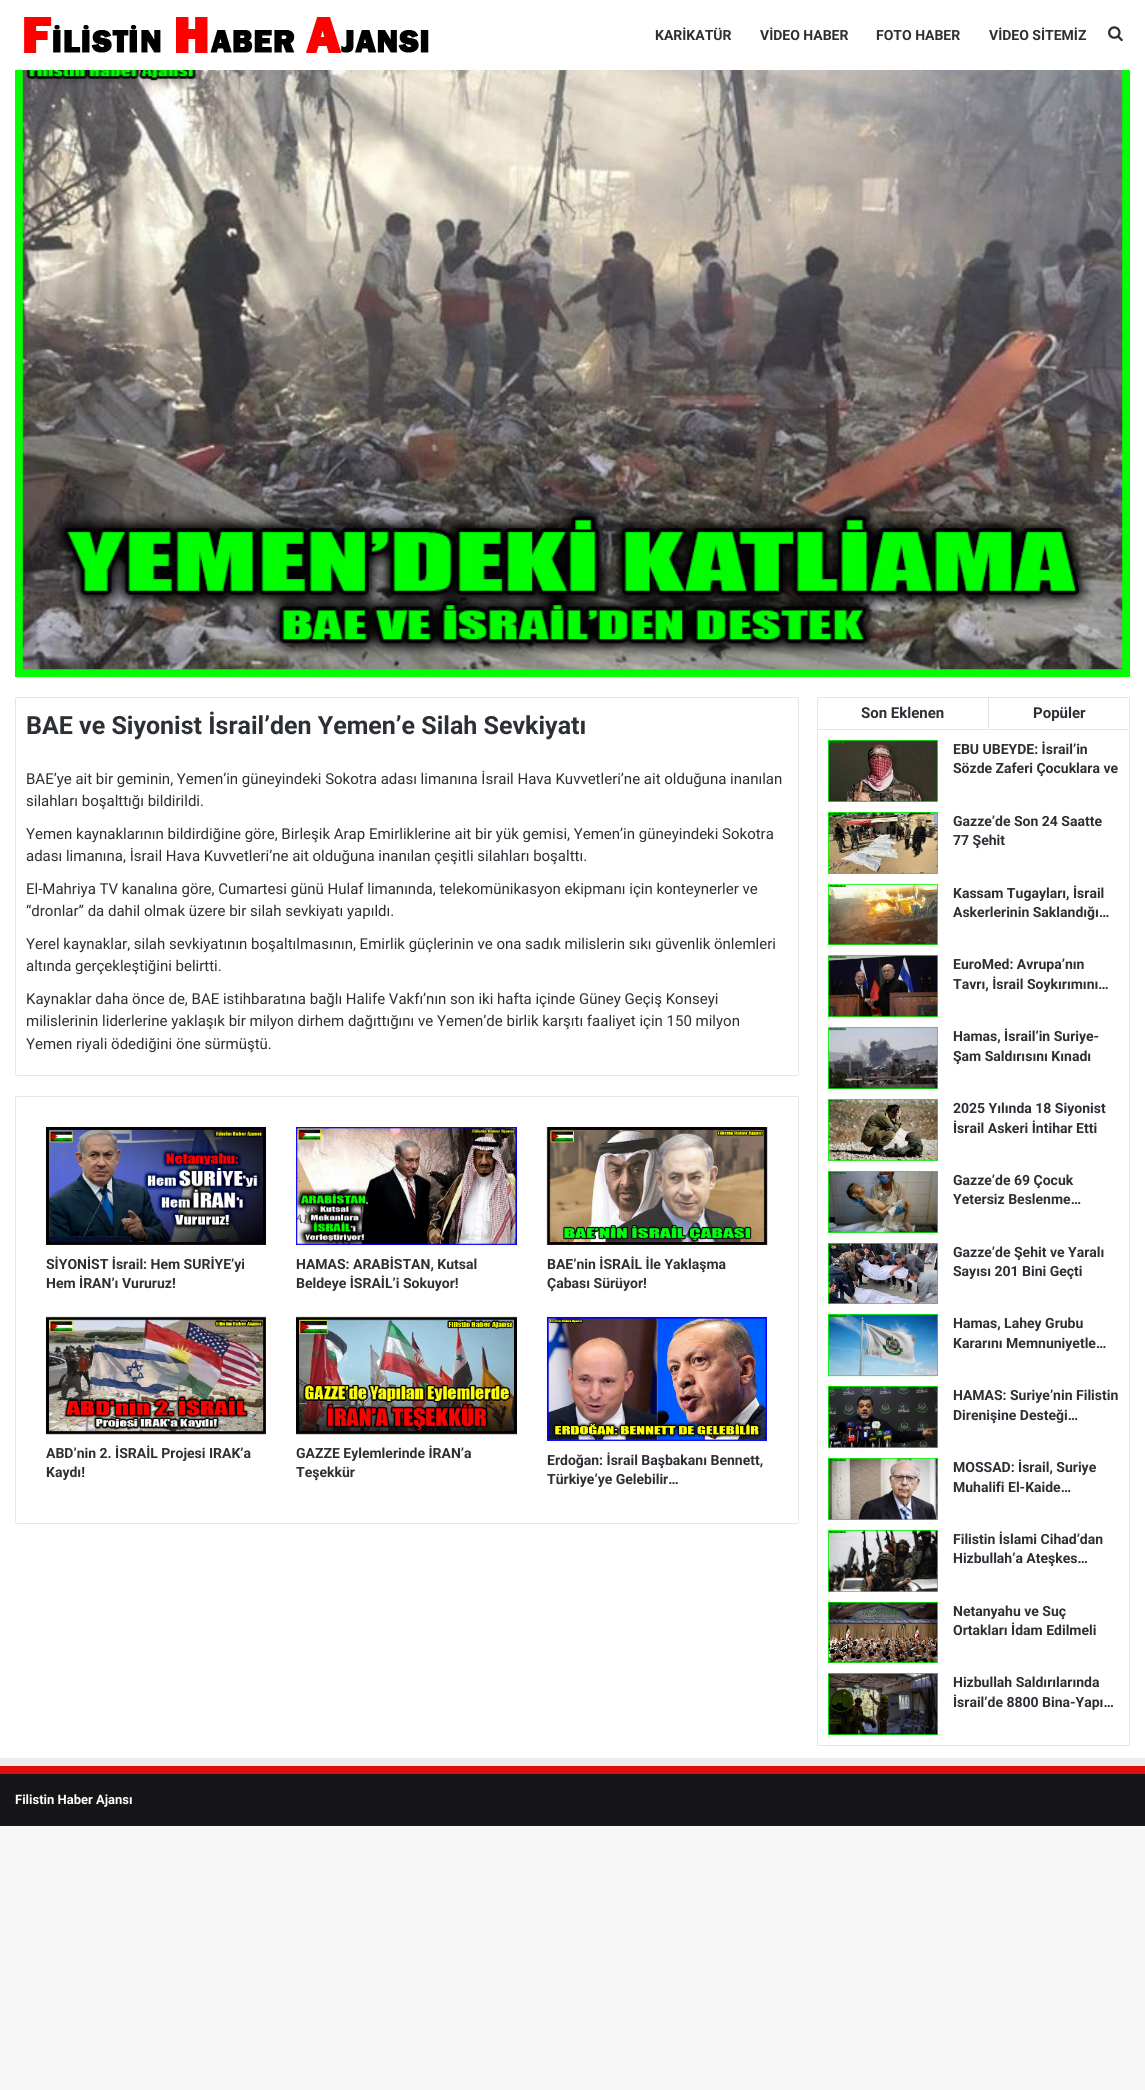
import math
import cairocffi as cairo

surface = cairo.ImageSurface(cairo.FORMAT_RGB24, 1145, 2090)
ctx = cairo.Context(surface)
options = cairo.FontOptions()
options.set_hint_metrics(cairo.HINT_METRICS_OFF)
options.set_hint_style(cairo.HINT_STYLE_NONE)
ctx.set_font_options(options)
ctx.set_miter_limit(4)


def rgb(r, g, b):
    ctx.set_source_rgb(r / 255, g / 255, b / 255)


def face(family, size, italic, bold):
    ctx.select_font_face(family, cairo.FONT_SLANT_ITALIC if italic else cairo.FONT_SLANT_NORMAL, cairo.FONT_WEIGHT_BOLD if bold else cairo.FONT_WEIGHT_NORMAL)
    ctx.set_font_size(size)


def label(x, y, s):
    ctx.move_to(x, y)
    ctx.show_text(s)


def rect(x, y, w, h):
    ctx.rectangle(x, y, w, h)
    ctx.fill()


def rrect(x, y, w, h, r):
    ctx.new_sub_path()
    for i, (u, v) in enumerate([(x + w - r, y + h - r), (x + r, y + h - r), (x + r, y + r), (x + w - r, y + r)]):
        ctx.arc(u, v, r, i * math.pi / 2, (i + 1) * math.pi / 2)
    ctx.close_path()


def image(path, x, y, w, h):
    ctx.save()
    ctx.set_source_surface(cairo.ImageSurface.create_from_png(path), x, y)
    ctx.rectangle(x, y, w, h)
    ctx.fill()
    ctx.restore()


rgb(247, 247, 247)
ctx.paint()
rgb(255, 255, 255)
rect(0, 0, 1145, 1758)
image('image0.png', 24, 17, 405, 36)
face('Roboto', 14, 0, 1)
rgb(44, 47, 52)
label(655, 40, 'KARİKATÜR')
label(760, 40, 'VİDEO HABER')
label(876, 40, 'FOTO HABER')
label(989, 40, 'VİDEO SİTEMİZ')
image('image1.png', 1108, 26, 15, 16)
image('image2.png', 15, 70, 1115, 607)
rrect(15.5, 697.5, 783, 378, 1.5)
rgb(230, 230, 230)
ctx.set_line_width(1)
ctx.stroke()
face('Roboto', 25, 0, 1)
rgb(44, 47, 52)
label(26, 734, 'BAE ve Siyonist İsrail’den Yemen’e Silah Sevkiyatı')
face('Roboto', 15, 0, 0)
label(26, 784, 'BAE’ye ait bir geminin, Yemen’in güneyindeki Sokotra adası limanına İsrail Hava Kuvvetleri’ne ait olduğuna inanılan')
label(26, 806, 'silahları boşalttığı bildirildi.')
label(26, 839, 'Yemen kaynaklarının bildirdiğine göre, Birleşik Arap Emirliklerine ait bir yük gemisi, Yemen’in güneyindeki Sokotra')
label(26, 861, 'adası limanına, İsrail Hava Kuvvetleri’ne ait olduğuna inanılan çeşitli silahları boşalttı.')
label(26, 894, 'El-Mahriya TV kanalına göre, Cumartesi günü Hulaf limanında, telekomünikasyon ekipmanı için konteynerler ve')
label(26, 916, '“dronlar” da dahil olmak üzere bir silah sevkiyatı yapıldı.')
label(26, 949, 'Yerel kaynaklar, silah sevkiyatının boşaltılmasının, Emirlik güçlerinin ve ona sadık milislerin sıkı güvenlik önlemleri')
label(26, 971, 'altında gerçekleştiğini belirtti.')
label(26, 1004, 'Kaynaklar daha önce de, BAE istihbaratına bağlı Halife Vakfı’nın son iki hafta içinde Güney Geçiş Konseyi')
label(26, 1026, 'milislerinin liderlerine yaklaşık bir milyon dirhem dağıttığını ve Yemen’de birlik karşıtı faaliyet için 150 milyon')
label(26, 1049, 'Yemen riyali ödediğini öne sürmüştü.')
rrect(15.5, 1096.5, 783, 427, 1.5)
rgb(230, 230, 230)
ctx.stroke()
image('image3.png', 46, 1127, 220, 118)
face('Roboto', 14, 0, 1)
rgb(44, 47, 52)
label(46, 1269, 'SİYONİST İsrail: Hem SURİYE’yi')
label(46, 1288, 'Hem İRAN’ı Vururuz!')
image('image4.png', 296, 1127, 221, 118)
label(296, 1269, 'HAMAS: ARABİSTAN, Kutsal')
label(296, 1288, 'Beldeye İSRAİL’i Sokuyor!')
image('image5.png', 546, 1127, 222, 118)
label(547, 1269, 'BAE’nin İSRAİL İle Yaklaşma')
label(547, 1288, 'Çabası Sürüyor!')
image('image6.png', 46, 1316, 220, 119)
label(46, 1458, 'ABD’nin 2. İSRAİL Projesi IRAK’a')
label(46, 1477, 'Kaydı!')
image('image7.png', 296, 1316, 221, 119)
label(296, 1458, 'GAZZE Eylemlerinde İRAN’a')
label(296, 1477, 'Teşekkür')
image('image8.png', 546, 1316, 221, 125)
label(547, 1465, 'Erdoğan: İsrail Başbakanı Bennett,')
label(547, 1484, 'Türkiye’ye Gelebilir…')
rrect(817.5, 697.5, 312, 1048, 1.5)
rgb(230, 230, 230)
ctx.stroke()
rect(818, 729, 311, 1)
rgb(225, 225, 225)
ctx.new_path()
ctx.move_to(989, 698)
ctx.line_to(989, 729)
ctx.line_to(988, 728)
ctx.line_to(988, 698)
ctx.close_path()
ctx.fill()
face('Roboto', 15, 0, 1)
rgb(44, 47, 52)
label(861, 718, 'Son Eklenen')
label(1033, 718, 'Popüler')
image('image9.png', 828, 740, 110, 62)
face('Roboto', 14, 0, 1)
label(953, 754, 'EBU UBEYDE: İsrail’in')
label(953, 773, 'Sözde Zaferi Çocuklara ve')
image('image10.png', 827, 811, 111, 63)
label(953, 826, 'Gazze’de Son 24 Saatte')
label(953, 845, '77 Şehit')
image('image11.png', 828, 884, 110, 61)
label(953, 898, 'Kassam Tugayları, İsrail')
label(953, 917, 'Askerlerinin Saklandığı…')
image('image12.png', 827, 955, 111, 63)
label(953, 969, 'EuroMed: Avrupa’nın')
label(953, 989, 'Tavrı, İsrail Soykırımını…')
image('image13.png', 827, 1027, 111, 62)
label(953, 1041, 'Hamas, İsrail’in Suriye-')
label(953, 1061, 'Şam Saldırısını Kınadı')
image('image14.png', 827, 1098, 111, 63)
label(953, 1113, '2025 Yılında 18 Siyonist')
label(953, 1133, 'İsrail Askeri İntihar Etti')
image('image15.png', 827, 1170, 111, 63)
label(953, 1185, 'Gazze’de 69 Çocuk')
label(953, 1204, 'Yetersiz Beslenme…')
image('image16.png', 828, 1243, 110, 61)
label(953, 1257, 'Gazze’de Şehit ve Yaralı')
label(953, 1276, 'Sayısı 201 Bini Geçti')
image('image17.png', 827, 1314, 111, 63)
label(953, 1328, 'Hamas, Lahey Grubu')
label(953, 1348, 'Kararını Memnuniyetle…')
image('image18.png', 827, 1386, 111, 62)
label(953, 1400, 'HAMAS: Suriye’nin Filistin')
label(953, 1420, 'Direnişine Desteği…')
image('image19.png', 827, 1458, 111, 62)
label(953, 1472, 'MOSSAD: İsrail, Suriye')
label(953, 1492, 'Muhalifi El-Kaide…')
image('image20.png', 827, 1529, 111, 63)
label(953, 1544, 'Filistin İslami Cihad’dan')
label(953, 1563, 'Hizbullah’a Ateşkes…')
image('image21.png', 828, 1602, 110, 61)
label(953, 1616, 'Netanyahu ve Suç')
label(953, 1635, 'Ortakları İdam Edilmeli')
image('image22.png', 827, 1673, 111, 63)
label(953, 1687, 'Hizbullah Saldırılarında')
label(953, 1707, 'İsrail’de 8800 Bina-Yapı…')
rgb(237, 237, 237)
rect(0, 1758, 1145, 8)
rgb(225, 13, 13)
rect(0, 1766, 1145, 8)
rgb(22, 22, 25)
rect(0, 1774, 1145, 52)
face('Roboto', 13, 0, 1)
rgb(255, 255, 255)
label(15, 1804, 'Filistin Haber Ajansı')
surface.write_to_png('render.png')
